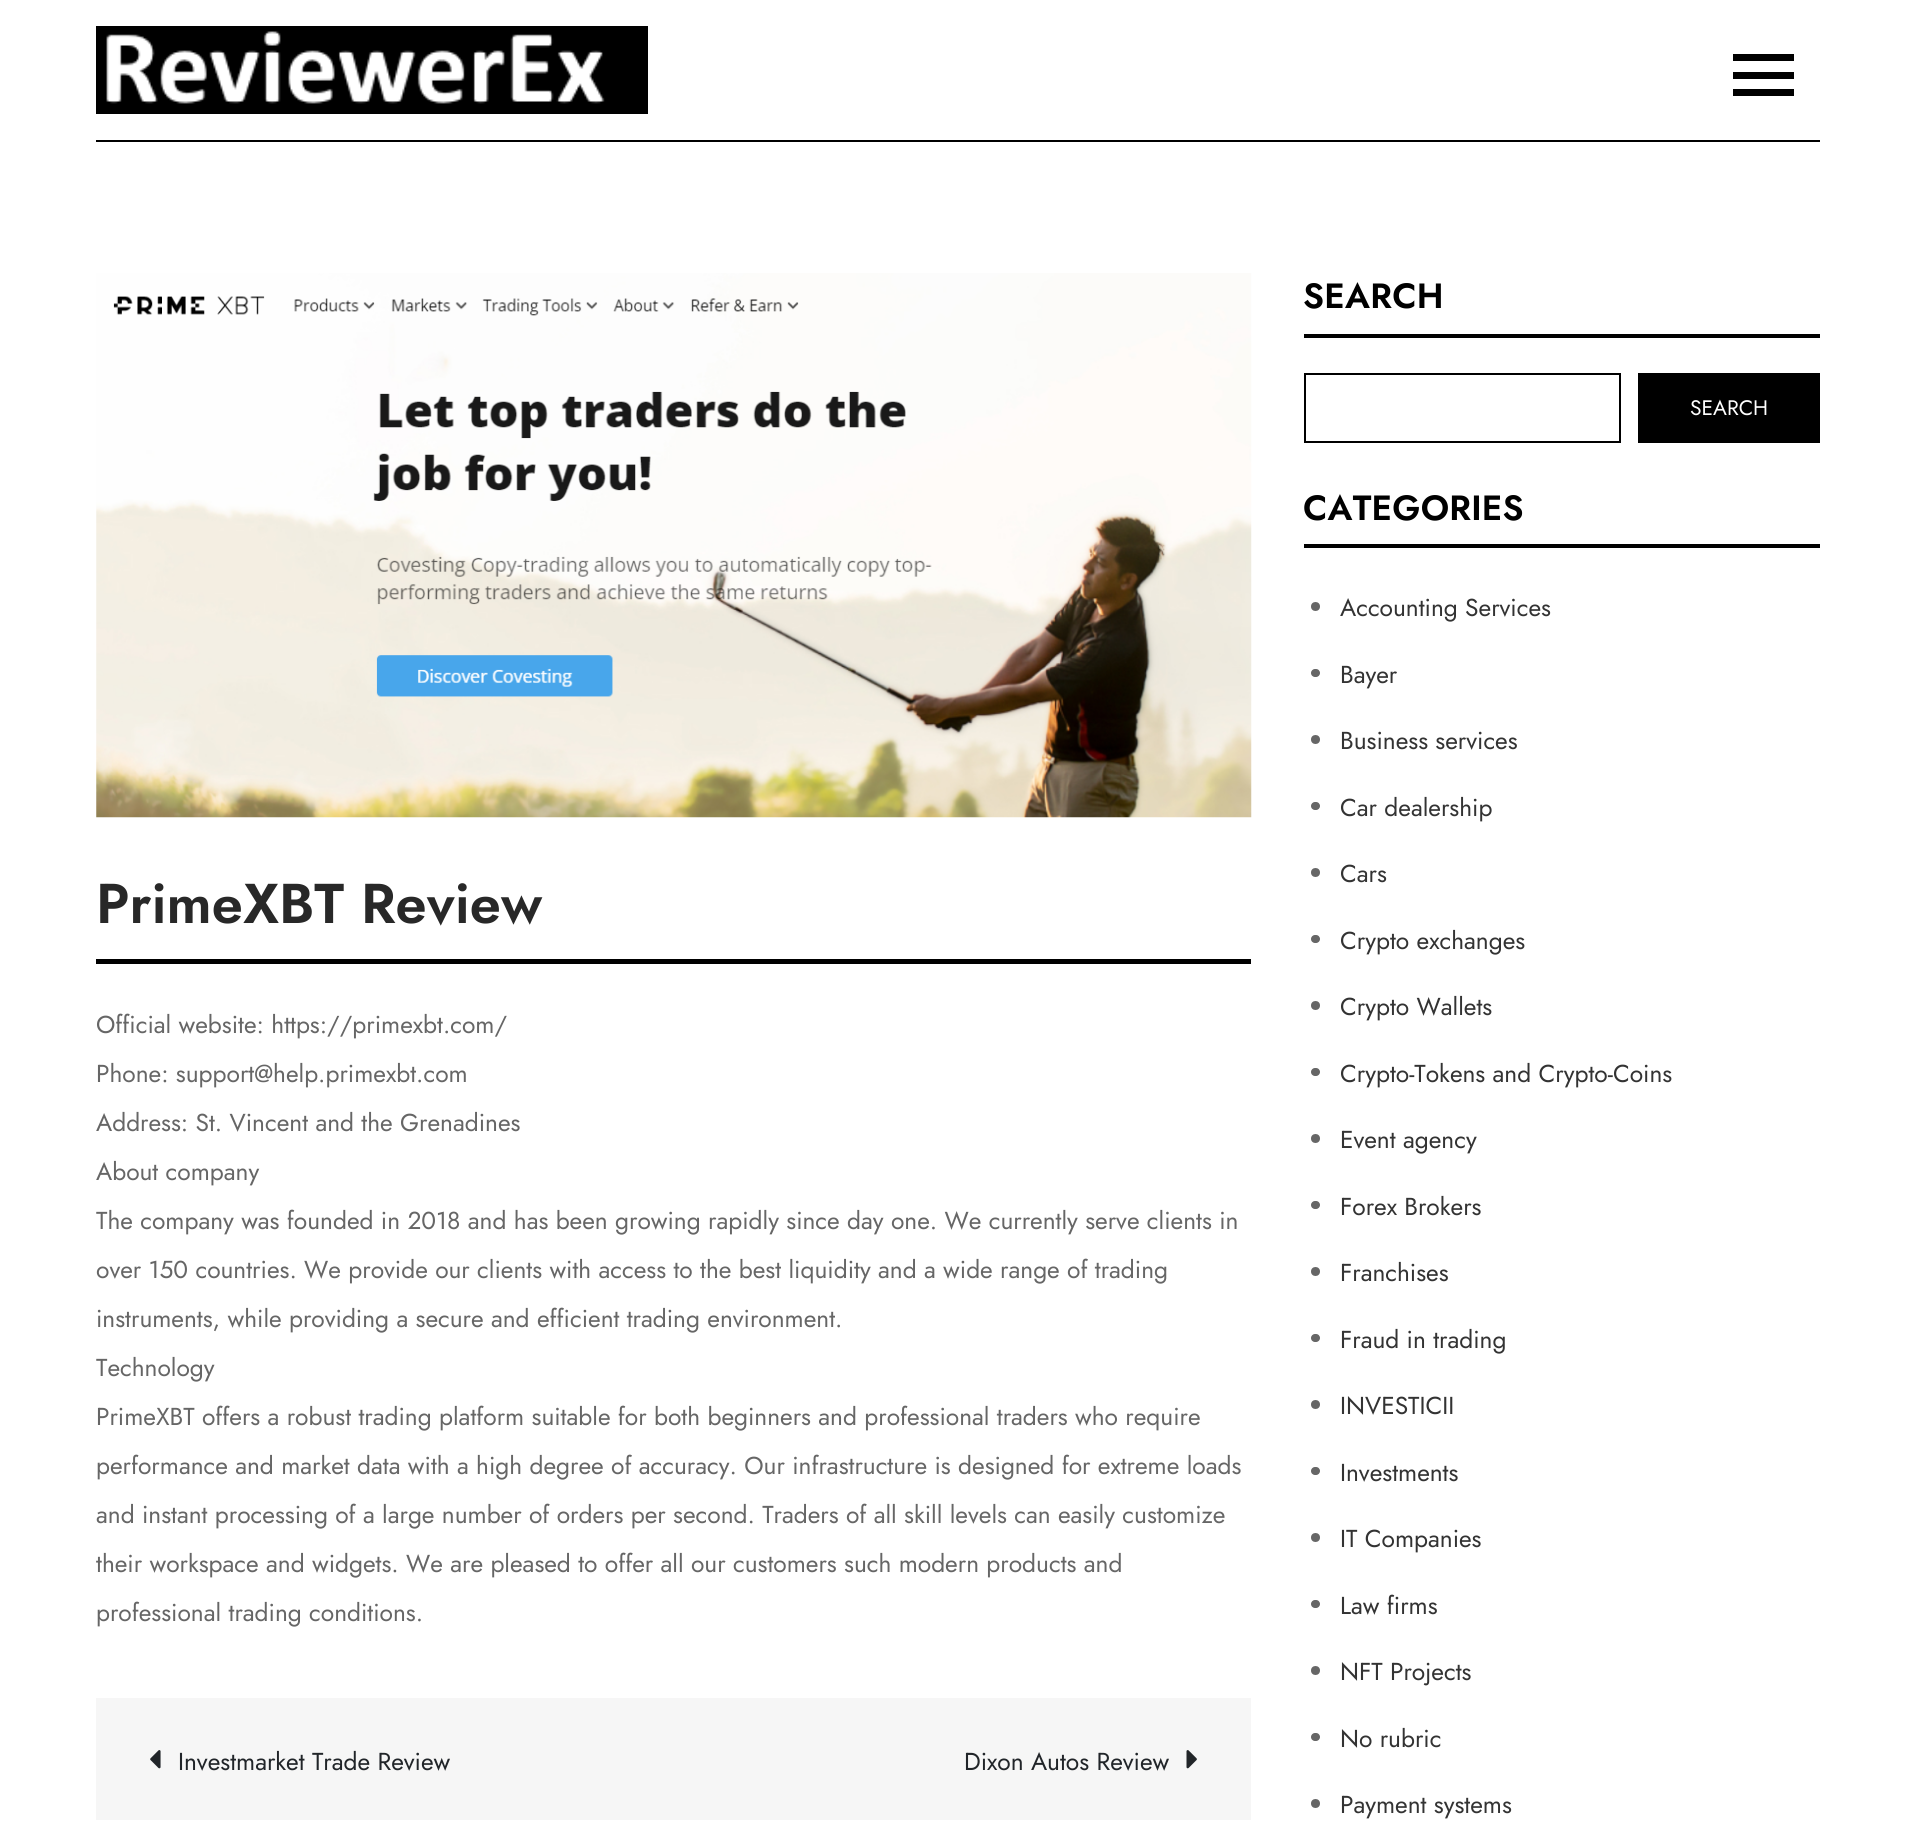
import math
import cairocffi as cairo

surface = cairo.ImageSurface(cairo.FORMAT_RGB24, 1916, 1822)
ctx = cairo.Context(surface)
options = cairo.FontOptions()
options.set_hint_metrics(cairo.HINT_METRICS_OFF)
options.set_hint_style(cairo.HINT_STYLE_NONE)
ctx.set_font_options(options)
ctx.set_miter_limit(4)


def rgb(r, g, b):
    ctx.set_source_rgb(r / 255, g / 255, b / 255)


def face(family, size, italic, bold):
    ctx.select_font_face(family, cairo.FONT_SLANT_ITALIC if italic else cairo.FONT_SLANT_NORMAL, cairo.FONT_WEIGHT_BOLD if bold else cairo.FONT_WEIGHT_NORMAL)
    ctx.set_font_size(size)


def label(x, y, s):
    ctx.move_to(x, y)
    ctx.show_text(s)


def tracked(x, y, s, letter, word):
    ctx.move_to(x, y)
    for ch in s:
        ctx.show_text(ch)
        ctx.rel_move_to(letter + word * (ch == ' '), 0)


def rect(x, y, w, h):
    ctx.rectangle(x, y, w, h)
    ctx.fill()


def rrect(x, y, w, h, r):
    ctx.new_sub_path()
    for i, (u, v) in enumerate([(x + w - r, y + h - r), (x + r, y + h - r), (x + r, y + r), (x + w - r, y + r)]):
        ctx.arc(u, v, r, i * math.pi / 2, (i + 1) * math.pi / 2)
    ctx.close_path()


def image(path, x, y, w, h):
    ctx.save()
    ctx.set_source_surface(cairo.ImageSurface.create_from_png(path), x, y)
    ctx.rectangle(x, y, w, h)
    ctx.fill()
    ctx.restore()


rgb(255, 255, 255)
ctx.paint()
rgb(0, 0, 0)
rect(96, 140, 1724, 2)
rect(96, 26, 552, 88)
image('image0.png', 106, 31, 499, 73)
rect(1733, 72, 61, 7)
rect(1733, 54, 61, 7)
rect(1733, 89, 61, 7)
image('image1.png', 96, 273, 1156, 545)
rect(96, 959, 1155, 5)
face('Jost SemiBold', 56, 0, 0)
rgb(40, 40, 40)
label(96, 923, 'PrimeXBT Review')
face('Jost', 24.5, 0, 0)
rgb(102, 102, 102)
label(96, 1033, 'Official website: https://primexbt.com/')
label(96, 1082, 'Phone: support@help.primexbt.com')
label(96, 1131, 'Address: St. Vincent and the Grenadines')
label(96, 1180, 'About company')
label(96, 1229, 'The company was founded in 2018 and has been growing rapidly since day one. We currently serve clients in')
label(96, 1278, 'over 150 countries. We provide our clients with access to the best liquidity and a wide range of trading')
label(96, 1327, 'instruments, while providing a secure and efficient trading environment.')
label(96, 1376, 'Technology')
label(96, 1425, 'PrimeXBT offers a robust trading platform suitable for both beginners and professional traders who require')
label(96, 1474, 'performance and market data with a high degree of accuracy. Our infrastructure is designed for extreme loads')
label(96, 1523, 'and instant processing of a large number of orders per second. Traders of all skill levels can easily customize')
label(96, 1572, 'their workspace and widgets. We are pleased to offer all our customers such modern products and')
label(96, 1621, 'professional trading conditions.')
rgb(246, 246, 246)
rect(96, 1698, 1155, 122)
image('image2.png', 150, 1750, 11, 19)
rgb(33, 37, 41)
label(178, 1770, 'Investmarket Trade Review')
label(964, 1770, 'Dixon Autos Review')
image('image3.png', 1186, 1750, 11, 19)
rgb(0, 0, 0)
rect(1304, 334, 516, 4)
face('Jost SemiBold', 35, 0, 0)
tracked(1303, 308, 'SEARCH', 0.25, 0)
ctx.rectangle(1305, 374, 315, 68)
ctx.stroke()
rect(1638, 373, 182, 70)
face('Jost', 21, 0, 0)
rgb(255, 255, 255)
label(1690, 415, 'SEARCH')
rgb(0, 0, 0)
rect(1304, 544, 516, 4)
face('Jost SemiBold', 35, 0, 0)
tracked(1303, 520, 'CATEGORIES', 0.25, 0)
rgb(102, 102, 102)
ctx.new_path()
ctx.arc(1315.5, 606.5, 4.5, 0, 2 * math.pi)
ctx.fill()
face('Jost', 24.5, 0, 0)
rgb(51, 51, 51)
label(1340, 616, 'Accounting Services')
rgb(102, 102, 102)
rrect(1311, 669, 9, 8, 4)
ctx.fill()
rgb(51, 51, 51)
label(1340, 683, 'Bayer')
rgb(102, 102, 102)
ctx.new_path()
ctx.arc(1315.5, 739.5, 4.5, 0, 2 * math.pi)
ctx.fill()
rgb(51, 51, 51)
label(1340, 749, 'Business services')
rgb(102, 102, 102)
rrect(1311, 802, 9, 8, 4)
ctx.fill()
rgb(51, 51, 51)
label(1340, 816, 'Car dealership')
rgb(102, 102, 102)
ctx.new_path()
ctx.arc(1315.5, 872.5, 4.5, 0, 2 * math.pi)
ctx.fill()
rgb(51, 51, 51)
label(1340, 882, 'Cars')
rgb(102, 102, 102)
rrect(1311, 935, 9, 8, 4)
ctx.fill()
rgb(51, 51, 51)
label(1340, 949, 'Crypto exchanges')
rgb(102, 102, 102)
ctx.new_path()
ctx.arc(1315.5, 1005.5, 4.5, 0, 2 * math.pi)
ctx.fill()
rgb(51, 51, 51)
label(1340, 1015, 'Crypto Wallets')
rgb(102, 102, 102)
rrect(1311, 1068, 9, 8, 4)
ctx.fill()
rgb(51, 51, 51)
label(1340, 1082, 'Crypto-Tokens and Crypto-Coins')
rgb(102, 102, 102)
ctx.new_path()
ctx.arc(1315.5, 1138.5, 4.5, 0, 2 * math.pi)
ctx.fill()
rgb(51, 51, 51)
label(1340, 1148, 'Event agency')
rgb(102, 102, 102)
rrect(1311, 1201, 9, 8, 4)
ctx.fill()
rgb(51, 51, 51)
label(1340, 1215, 'Forex Brokers')
rgb(102, 102, 102)
ctx.new_path()
ctx.arc(1315.5, 1271.5, 4.5, 0, 2 * math.pi)
ctx.fill()
rgb(51, 51, 51)
label(1340, 1281, 'Franchises')
rgb(102, 102, 102)
rrect(1311, 1334, 9, 8, 4)
ctx.fill()
rgb(51, 51, 51)
label(1340, 1348, 'Fraud in trading')
rgb(102, 102, 102)
ctx.new_path()
ctx.arc(1315.5, 1404.5, 4.5, 0, 2 * math.pi)
ctx.fill()
rgb(51, 51, 51)
label(1340, 1414, 'INVESTICII')
rgb(102, 102, 102)
rrect(1311, 1467, 9, 8, 4)
ctx.fill()
rgb(51, 51, 51)
label(1340, 1481, 'Investments')
rgb(102, 102, 102)
ctx.new_path()
ctx.arc(1315.5, 1537.5, 4.5, 0, 2 * math.pi)
ctx.fill()
rgb(51, 51, 51)
label(1340, 1547, 'IT Companies')
rgb(102, 102, 102)
rrect(1311, 1600, 9, 8, 4)
ctx.fill()
rgb(51, 51, 51)
label(1340, 1614, 'Law firms')
rgb(102, 102, 102)
ctx.new_path()
ctx.arc(1315.5, 1670.5, 4.5, 0, 2 * math.pi)
ctx.fill()
rgb(51, 51, 51)
label(1340, 1680, 'NFT Projects')
rgb(102, 102, 102)
rrect(1311, 1733, 9, 8, 4)
ctx.fill()
rgb(51, 51, 51)
label(1340, 1747, 'No rubric')
rgb(102, 102, 102)
ctx.new_path()
ctx.arc(1315.5, 1803.5, 4.5, 0, 2 * math.pi)
ctx.fill()
rgb(51, 51, 51)
label(1340, 1813, 'Payment systems')
surface.write_to_png('render.png')
